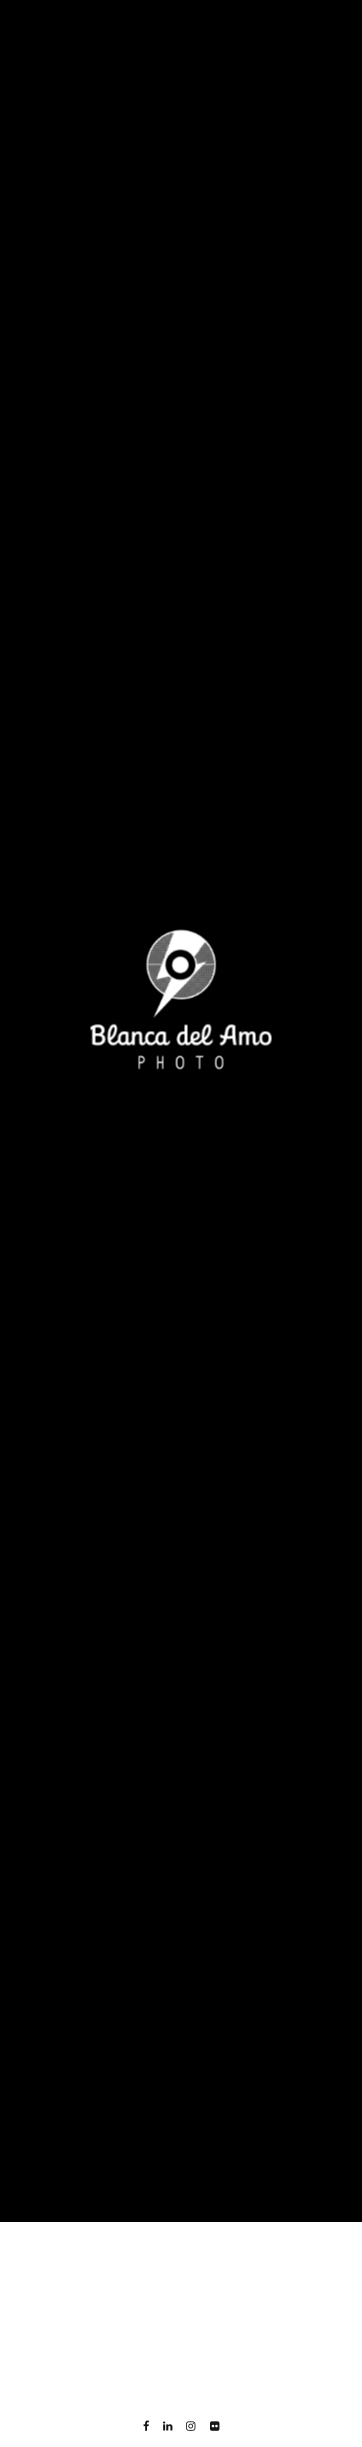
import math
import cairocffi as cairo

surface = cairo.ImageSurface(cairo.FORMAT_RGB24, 362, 2447)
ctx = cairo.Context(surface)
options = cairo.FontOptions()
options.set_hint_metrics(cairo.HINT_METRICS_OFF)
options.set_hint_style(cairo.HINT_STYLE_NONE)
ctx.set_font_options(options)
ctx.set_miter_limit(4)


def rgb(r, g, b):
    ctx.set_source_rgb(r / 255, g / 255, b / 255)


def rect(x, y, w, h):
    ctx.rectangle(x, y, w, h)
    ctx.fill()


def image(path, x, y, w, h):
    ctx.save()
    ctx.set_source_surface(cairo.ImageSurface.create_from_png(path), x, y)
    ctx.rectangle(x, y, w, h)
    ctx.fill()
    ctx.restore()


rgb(255, 255, 255)
ctx.paint()
rgb(0, 0, 0)
rect(0, 0, 362, 2222)
image('image0.png', 90, 929, 182, 141)
image('image1.png', 143, 2420, 6, 11)
image('image2.png', 163, 2421, 10, 10)
image('image3.png', 186, 2421, 10, 10)
image('image4.png', 210, 2421, 10, 10)
surface.write_to_png('render.png')
